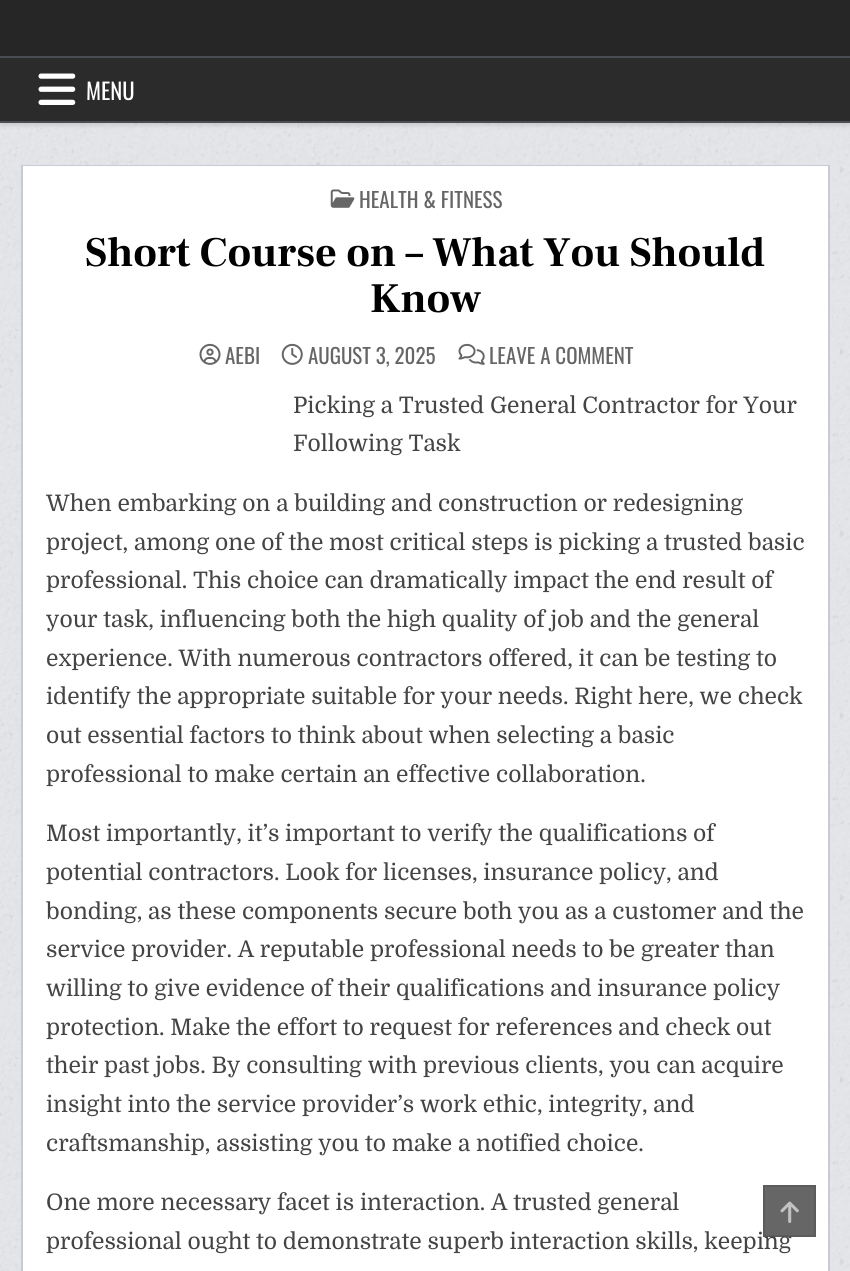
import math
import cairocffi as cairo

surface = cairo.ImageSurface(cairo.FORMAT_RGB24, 850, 1271)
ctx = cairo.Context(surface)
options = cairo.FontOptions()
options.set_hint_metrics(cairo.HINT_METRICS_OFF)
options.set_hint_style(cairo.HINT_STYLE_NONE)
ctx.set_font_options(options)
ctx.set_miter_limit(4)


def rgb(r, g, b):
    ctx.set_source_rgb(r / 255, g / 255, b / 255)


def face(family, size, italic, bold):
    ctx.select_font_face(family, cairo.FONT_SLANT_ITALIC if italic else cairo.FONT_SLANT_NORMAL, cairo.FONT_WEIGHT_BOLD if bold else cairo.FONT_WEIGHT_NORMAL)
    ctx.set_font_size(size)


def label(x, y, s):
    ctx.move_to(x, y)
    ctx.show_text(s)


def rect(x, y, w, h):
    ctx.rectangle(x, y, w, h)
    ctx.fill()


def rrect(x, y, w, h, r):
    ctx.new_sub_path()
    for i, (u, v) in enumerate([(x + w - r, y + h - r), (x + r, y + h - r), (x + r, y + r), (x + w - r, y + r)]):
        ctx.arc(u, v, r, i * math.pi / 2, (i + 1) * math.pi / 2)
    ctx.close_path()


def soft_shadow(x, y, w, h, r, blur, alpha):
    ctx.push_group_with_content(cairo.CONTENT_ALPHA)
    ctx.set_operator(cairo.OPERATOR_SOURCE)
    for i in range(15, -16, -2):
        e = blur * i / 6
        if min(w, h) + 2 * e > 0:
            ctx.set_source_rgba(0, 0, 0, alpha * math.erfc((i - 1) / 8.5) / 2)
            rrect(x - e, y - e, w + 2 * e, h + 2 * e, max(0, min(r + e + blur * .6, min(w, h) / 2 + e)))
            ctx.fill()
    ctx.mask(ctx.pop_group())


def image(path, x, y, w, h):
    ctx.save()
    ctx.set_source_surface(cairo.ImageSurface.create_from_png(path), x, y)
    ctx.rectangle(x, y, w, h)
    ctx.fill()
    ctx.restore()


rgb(228, 230, 233)
ctx.paint()
image('image0.png', 0, 123, 850, 1148)
rgb(0, 0, 0)
soft_shadow(0, 60, 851, 66, 0, 2, 0.1)
rgb(38, 38, 38)
rect(0, 0, 850, 56)
rgb(43, 43, 43)
rect(0, 58, 850, 63)
rgb(74, 78, 83)
rect(0, 56, 850, 2)
rect(0, 121, 850, 2)
image('image1.png', 38, 73, 38, 32)
face('Oswald', 22.75, 0, 0)
rgb(255, 255, 255)
label(86, 100, 'MENU')
rect(25, 168, 801, 1103)
ctx.rectangle(22, 166, 807, 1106)
rgb(200, 203, 214)
ctx.stroke()
ctx.rectangle(24, 167, 803, 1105)
rgb(255, 255, 255)
ctx.stroke()
image('image2.png', 330, 189, 25, 19)
face('Oswald', 21, 0, 0)
rgb(102, 102, 102)
label(359, 208, 'HEALTH & FITNESS')
face('Frank Ruhl Libre', 42, 0, 1)
rgb(0, 0, 0)
label(85, 266, 'Short Course on – What You Should')
label(370, 312, 'Know')
image('image3.png', 199, 343, 22, 22)
face('Oswald', 21, 0, 0)
rgb(102, 102, 102)
label(225, 364, 'AEBI')
image('image4.png', 281, 343, 22, 22)
label(308, 364, 'AUGUST 3, 2025')
image('image5.png', 458, 343, 27, 22)
label(489, 364, 'LEAVE A COMMENT')
face('Domine', 22.75, 0, 0)
rgb(68, 68, 68)
label(293, 413, 'Picking a Trusted General Contractor for Your')
label(293, 451, 'Following Task')
label(46, 511, 'When embarking on a building and construction or redesigning')
label(46, 550, 'project, among one of the most critical steps is picking a trusted basic')
label(46, 588, 'professional. This choice can dramatically impact the end result of')
label(46, 627, 'your task, influencing both the high quality of job and the general')
label(46, 666, 'experience. With numerous contractors offered, it can be testing to')
label(46, 704, 'identify the appropriate suitable for your needs. Right here, we check')
label(46, 743, 'out essential factors to think about when selecting a basic')
label(46, 782, 'professional to make certain an effective collaboration.')
label(46, 841, 'Most importantly, it’s important to verify the qualifications of')
label(46, 880, 'potential contractors. Look for licenses, insurance policy, and')
label(46, 919, 'bonding, as these components secure both you as a customer and the')
label(46, 957, 'service provider. A reputable professional needs to be greater than')
label(46, 996, 'willing to give evidence of their qualifications and insurance policy')
label(46, 1035, 'protection. Make the effort to request for references and check out')
label(46, 1073, 'their past jobs. By consulting with previous clients, you can acquire')
label(46, 1112, 'insight into the service provider’s work ethic, integrity, and')
label(46, 1151, 'craftsmanship, assisting you to make a notified choice.')
label(46, 1210, 'One more necessary facet is interaction. A trusted general')
label(46, 1249, 'professional ought to demonstrate superb interaction skills, keeping')
ctx.set_source_rgba(0, 0, 0, 0.6)
rect(763, 1185, 53, 52)
ctx.rectangle(764, 1186, 51, 50)
ctx.set_source_rgba(0.333, 0.333, 0.333, 0.6)
ctx.stroke()
image('image6.png', 780, 1201, 19, 22)
surface.write_to_png('render.png')
